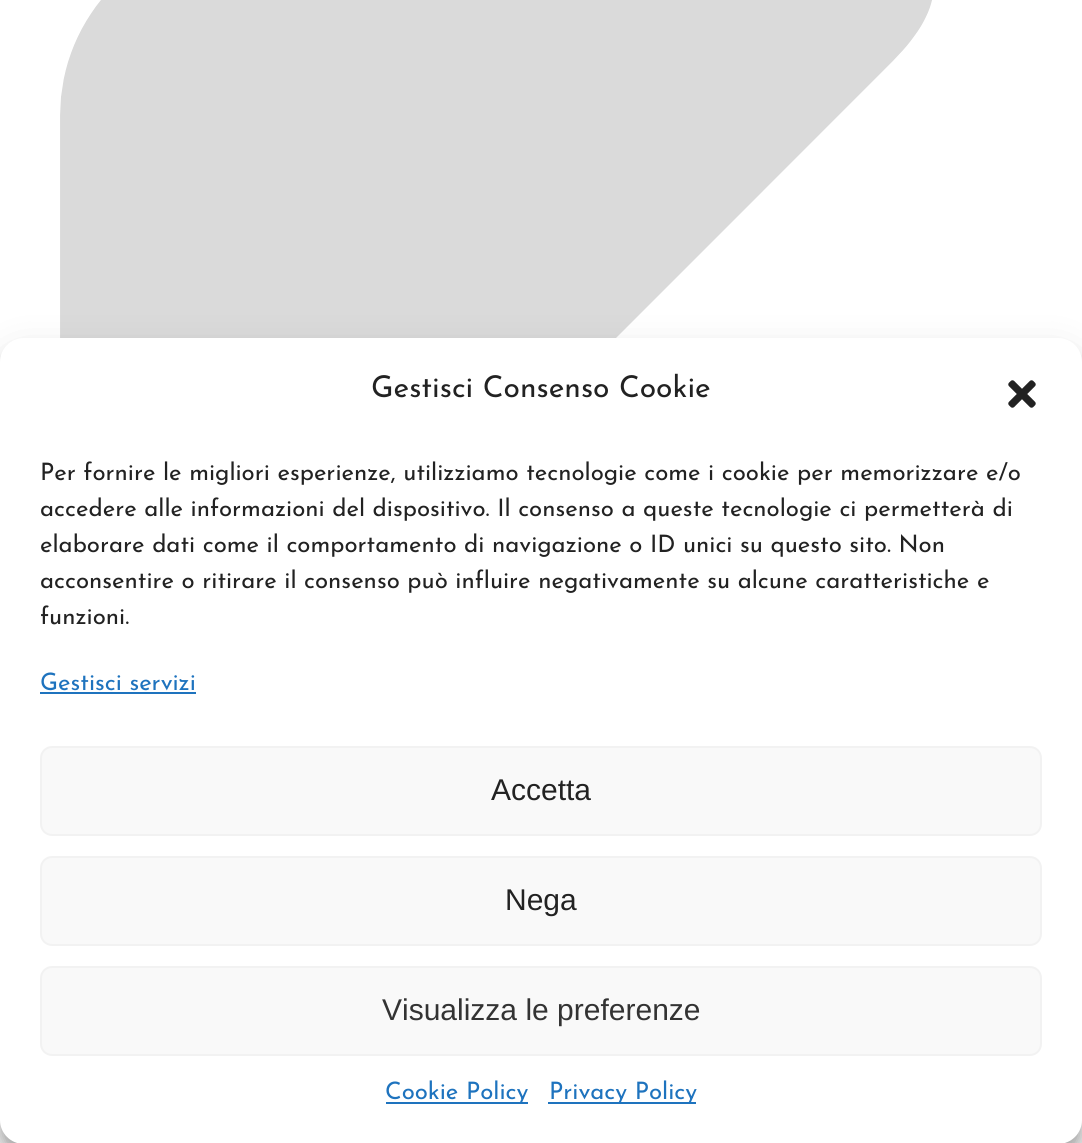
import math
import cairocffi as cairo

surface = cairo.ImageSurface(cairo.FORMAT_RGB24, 1082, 1143)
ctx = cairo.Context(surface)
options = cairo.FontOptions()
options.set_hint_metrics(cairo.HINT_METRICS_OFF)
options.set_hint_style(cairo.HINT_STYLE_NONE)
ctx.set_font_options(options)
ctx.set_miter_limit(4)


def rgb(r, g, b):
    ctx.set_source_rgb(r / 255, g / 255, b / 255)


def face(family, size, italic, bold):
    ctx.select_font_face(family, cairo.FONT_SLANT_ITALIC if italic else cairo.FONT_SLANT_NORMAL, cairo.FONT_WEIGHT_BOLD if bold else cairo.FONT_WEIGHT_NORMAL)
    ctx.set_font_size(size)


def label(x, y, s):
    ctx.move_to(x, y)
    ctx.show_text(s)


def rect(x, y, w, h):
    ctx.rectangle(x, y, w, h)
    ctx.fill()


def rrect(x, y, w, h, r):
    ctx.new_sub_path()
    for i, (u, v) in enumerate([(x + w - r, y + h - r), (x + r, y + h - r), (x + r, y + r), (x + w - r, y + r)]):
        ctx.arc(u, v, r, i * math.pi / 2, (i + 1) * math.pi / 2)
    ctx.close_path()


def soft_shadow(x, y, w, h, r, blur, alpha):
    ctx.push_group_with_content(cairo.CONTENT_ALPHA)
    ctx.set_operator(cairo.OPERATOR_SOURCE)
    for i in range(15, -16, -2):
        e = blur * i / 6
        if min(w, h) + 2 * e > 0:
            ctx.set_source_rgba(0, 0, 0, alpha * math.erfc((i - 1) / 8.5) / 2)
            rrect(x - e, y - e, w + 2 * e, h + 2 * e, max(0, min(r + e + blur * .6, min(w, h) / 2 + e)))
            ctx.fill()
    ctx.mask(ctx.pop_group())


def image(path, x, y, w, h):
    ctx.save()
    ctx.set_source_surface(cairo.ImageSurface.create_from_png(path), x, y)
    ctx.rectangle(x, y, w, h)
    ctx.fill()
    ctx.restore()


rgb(255, 255, 255)
ctx.paint()
image('image0.png', 60, 0, 872, 338)
rgb(0, 0, 0)
soft_shadow(0, 350, 1082, 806, 24, 6, 0.23)
soft_shadow(0, 358, 1082, 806, 24, 20, 0.19)
rgb(255, 255, 255)
rrect(0, 338, 1082, 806, 24)
ctx.fill()
face('Josefin Sans Thin', 30, 0, 0)
rgb(34, 34, 34)
label(371, 397, 'Gestisci Consenso Cookie')
image('image1.png', 1008, 380, 28, 28)
face('Josefin Sans Thin', 24, 0, 0)
label(40, 480, 'Per fornire le migliori esperienze, utilizziamo tecnologie come i cookie per memorizzare e/o')
label(40, 516, 'accedere alle informazioni del dispositivo. Il consenso a queste tecnologie ci permetterà di')
label(40, 552, 'elaborare dati come il comportamento di navigazione o ID unici su questo sito. Non')
label(40, 588, 'acconsentire o ritirare il consenso può influire negativamente su alcune caratteristiche e')
label(40, 624, 'funzioni.')
rgb(30, 115, 190)
label(40, 690, 'Gestisci servizi')
rect(40, 692, 156, 2)
rgb(249, 249, 249)
rrect(41, 747, 1000, 88, 11)
ctx.fill_preserve()
rgb(242, 242, 242)
ctx.stroke()
face('Liberation Sans', 30, 0, 0)
rgb(34, 34, 34)
label(491, 800, 'Accetta')
rgb(249, 249, 249)
rrect(41, 857, 1000, 88, 11)
ctx.fill_preserve()
rgb(242, 242, 242)
ctx.stroke()
rgb(34, 34, 34)
label(505, 910, 'Nega')
rgb(249, 249, 249)
rrect(41, 967, 1000, 88, 11)
ctx.fill_preserve()
rgb(242, 242, 242)
ctx.stroke()
rgb(51, 51, 51)
label(382, 1020, 'Visualizza le preferenze')
rgb(30, 115, 190)
rect(386, 1102, 142, 2)
face('Josefin Sans Thin', 24, 0, 0)
label(385, 1099, 'Cookie Policy')
rect(548, 1102, 148, 2)
label(549, 1099, 'Privacy Policy')
surface.write_to_png('render.png')
